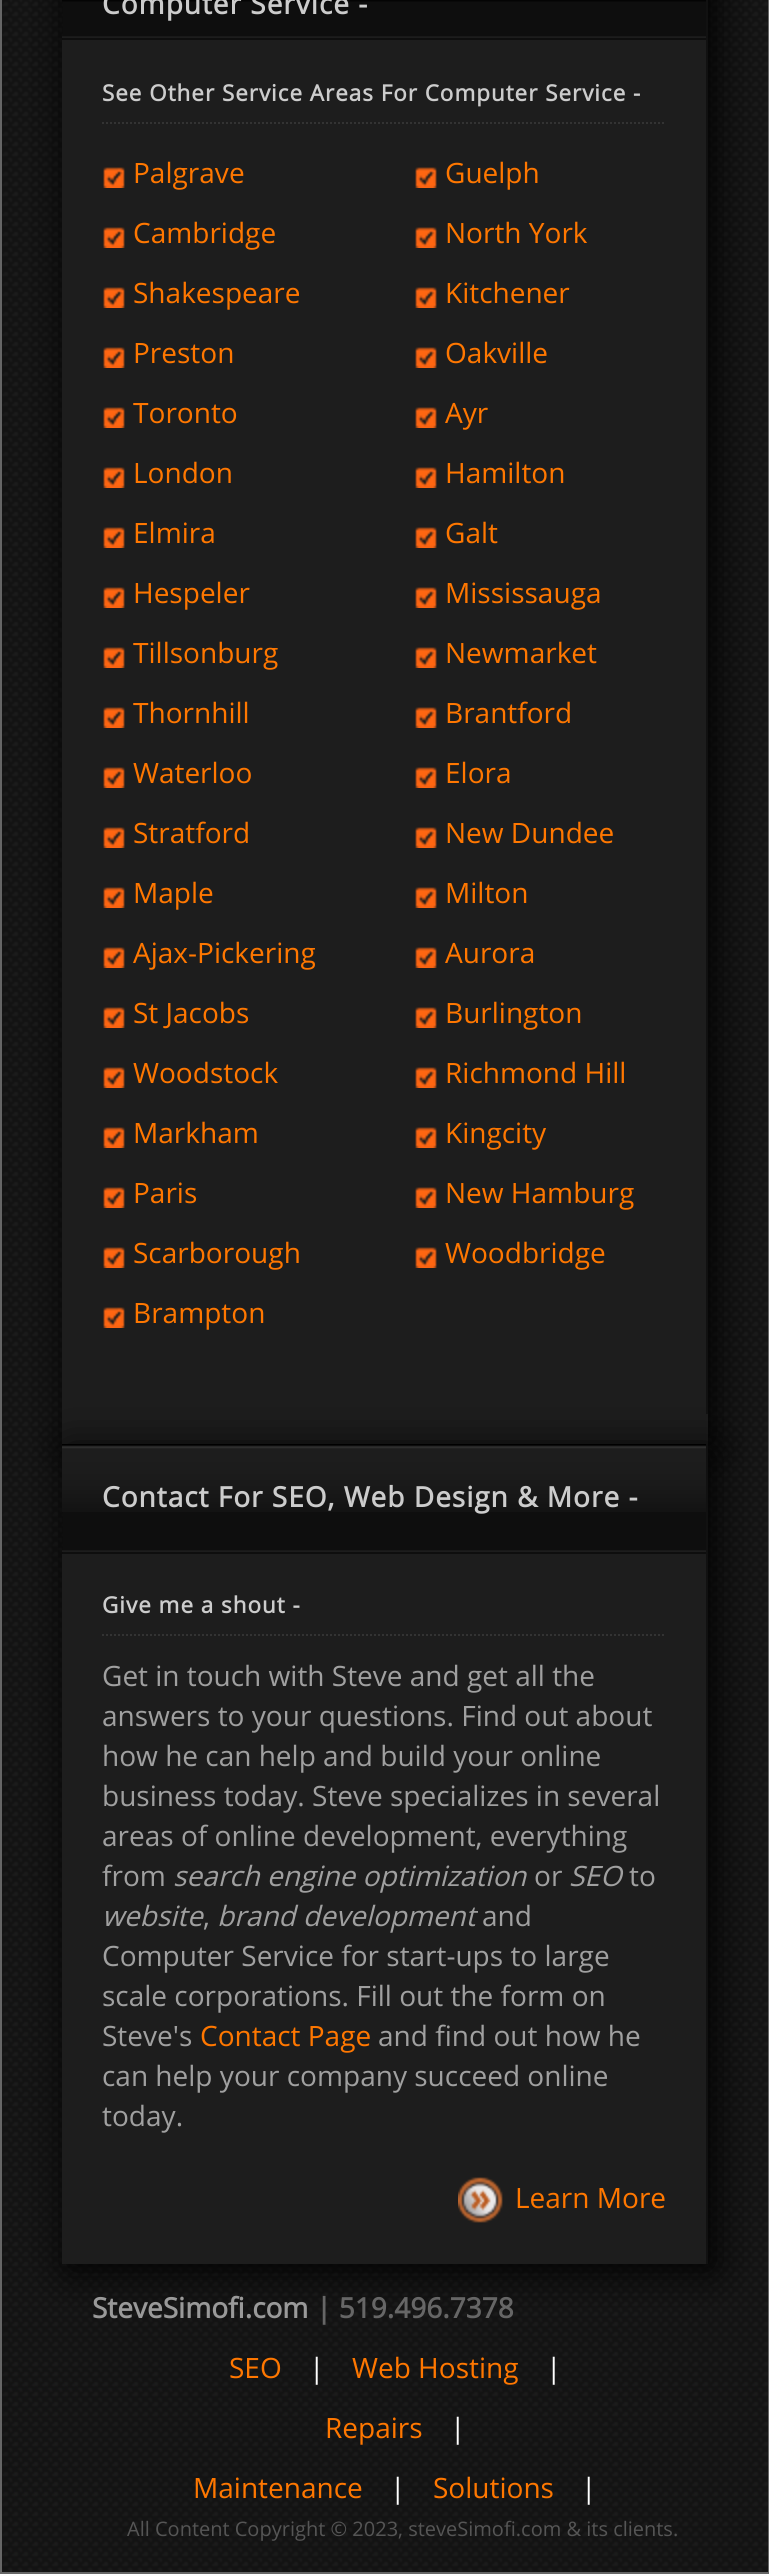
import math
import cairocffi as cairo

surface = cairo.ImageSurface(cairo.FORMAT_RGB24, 769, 2574)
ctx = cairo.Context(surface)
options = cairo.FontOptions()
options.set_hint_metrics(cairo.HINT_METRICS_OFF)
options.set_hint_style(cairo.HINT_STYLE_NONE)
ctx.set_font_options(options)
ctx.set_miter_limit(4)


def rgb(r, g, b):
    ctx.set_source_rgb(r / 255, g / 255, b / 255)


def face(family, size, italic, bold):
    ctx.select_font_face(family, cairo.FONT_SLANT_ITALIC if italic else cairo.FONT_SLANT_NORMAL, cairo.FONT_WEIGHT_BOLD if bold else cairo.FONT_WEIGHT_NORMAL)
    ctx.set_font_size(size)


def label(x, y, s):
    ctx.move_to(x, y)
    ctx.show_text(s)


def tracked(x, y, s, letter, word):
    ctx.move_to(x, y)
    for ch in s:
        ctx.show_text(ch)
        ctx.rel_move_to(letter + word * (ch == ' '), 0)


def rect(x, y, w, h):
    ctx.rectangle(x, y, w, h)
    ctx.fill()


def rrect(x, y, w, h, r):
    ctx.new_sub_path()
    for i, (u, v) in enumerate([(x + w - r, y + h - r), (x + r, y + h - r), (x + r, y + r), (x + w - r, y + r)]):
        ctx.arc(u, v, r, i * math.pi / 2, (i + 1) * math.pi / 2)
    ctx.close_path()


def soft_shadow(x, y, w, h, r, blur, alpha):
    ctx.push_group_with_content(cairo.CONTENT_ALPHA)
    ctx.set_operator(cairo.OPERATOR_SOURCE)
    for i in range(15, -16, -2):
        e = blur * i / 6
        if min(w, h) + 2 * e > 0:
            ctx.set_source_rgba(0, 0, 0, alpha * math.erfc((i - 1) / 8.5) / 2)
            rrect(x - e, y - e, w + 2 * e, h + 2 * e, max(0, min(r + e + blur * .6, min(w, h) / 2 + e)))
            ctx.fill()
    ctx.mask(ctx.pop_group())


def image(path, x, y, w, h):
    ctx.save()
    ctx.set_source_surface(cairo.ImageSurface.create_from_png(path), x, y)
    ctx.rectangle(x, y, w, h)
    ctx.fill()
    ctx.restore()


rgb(255, 255, 255)
ctx.paint()
image('image0.png', 2, 0, 766, 2572)
ctx.rectangle(1, -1, 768, 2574)
rgb(102, 102, 102)
ctx.stroke()
rgb(0, 0, 0)
soft_shadow(68, -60, 646, 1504, 0, 20, 1)
rgb(29, 29, 29)
rect(62, 40, 646, 1404)
rgb(17, 17, 17)
rect(706, 0, 2, 1414)
rgb(14, 14, 14)
rect(63, 2, 643, 38)
image('image1.png', 62, 0, 644, 2)
face('Open Sans', 28, 0, 1)
rgb(204, 204, 204)
tracked(102, 14, 'Computer Service -', 1, 0)
image('image2.png', 62, 36, 644, 2)
ctx.new_path()
ctx.move_to(102, 123)
ctx.line_to(666, 123)
rgb(51, 51, 51)
ctx.set_dash([2, 2])
ctx.stroke()
face('Open Sans', 22.4, 0, 1)
rgb(204, 204, 204)
tracked(102, 101, 'See Other Service Areas For Computer Service -', 1, 0)
image('image3.png', 103, 167, 22, 21)
face('Open Sans', 28, 0, 0)
rgb(255, 119, 0)
label(133, 183, 'Palgrave')
image('image3.png', 415, 167, 22, 21)
label(445, 183, 'Guelph')
image('image3.png', 103, 227, 22, 21)
label(133, 243, 'Cambridge')
image('image3.png', 415, 227, 22, 21)
label(445, 243, 'North York')
image('image3.png', 103, 287, 22, 21)
label(133, 303, 'Shakespeare')
image('image3.png', 415, 287, 22, 21)
label(445, 303, 'Kitchener')
image('image3.png', 103, 347, 22, 21)
label(133, 363, 'Preston')
image('image3.png', 415, 347, 22, 21)
label(445, 363, 'Oakville')
image('image3.png', 103, 407, 22, 21)
label(133, 423, 'Toronto')
image('image3.png', 415, 407, 22, 21)
label(445, 423, 'Ayr')
image('image3.png', 103, 467, 22, 21)
label(133, 483, 'London')
image('image3.png', 415, 467, 22, 21)
label(445, 483, 'Hamilton')
image('image3.png', 103, 527, 22, 21)
label(133, 543, 'Elmira')
image('image3.png', 415, 527, 22, 21)
label(445, 543, 'Galt')
image('image3.png', 103, 587, 22, 21)
label(133, 603, 'Hespeler')
image('image3.png', 415, 587, 22, 21)
label(445, 603, 'Mississauga')
image('image3.png', 103, 647, 22, 21)
label(133, 663, 'Tillsonburg')
image('image3.png', 415, 647, 22, 21)
label(445, 663, 'Newmarket')
image('image3.png', 103, 707, 22, 21)
label(133, 723, 'Thornhill')
image('image3.png', 415, 707, 22, 21)
label(445, 723, 'Brantford')
image('image3.png', 103, 767, 22, 21)
label(133, 783, 'Waterloo')
image('image3.png', 415, 767, 22, 21)
label(445, 783, 'Elora')
image('image3.png', 103, 827, 22, 21)
label(133, 843, 'Stratford')
image('image3.png', 415, 827, 22, 21)
label(445, 843, 'New Dundee')
image('image3.png', 103, 887, 22, 21)
label(133, 903, 'Maple')
image('image3.png', 415, 887, 22, 21)
label(445, 903, 'Milton')
image('image3.png', 103, 947, 22, 21)
label(133, 963, 'Ajax-Pickering')
image('image3.png', 415, 947, 22, 21)
label(445, 963, 'Aurora')
image('image3.png', 103, 1007, 22, 21)
label(133, 1023, 'St Jacobs')
image('image3.png', 415, 1007, 22, 21)
label(445, 1023, 'Burlington')
image('image3.png', 103, 1067, 22, 21)
label(133, 1083, 'Woodstock')
image('image3.png', 415, 1067, 22, 21)
label(445, 1083, 'Richmond Hill')
image('image3.png', 103, 1127, 22, 21)
label(133, 1143, 'Markham')
image('image3.png', 415, 1127, 22, 21)
label(445, 1143, 'Kingcity')
image('image3.png', 103, 1187, 22, 21)
label(133, 1203, 'Paris')
image('image3.png', 415, 1187, 22, 21)
label(445, 1203, 'New Hamburg')
image('image3.png', 103, 1247, 22, 21)
label(133, 1263, 'Scarborough')
image('image3.png', 415, 1247, 22, 21)
label(445, 1263, 'Woodbridge')
image('image3.png', 103, 1307, 22, 21)
label(133, 1323, 'Brampton')
rgb(0, 0, 0)
soft_shadow(68, 1450, 646, 820, 0, 20, 1)
rgb(29, 29, 29)
rect(62, 1554, 644, 710)
rgb(17, 17, 17)
rect(706, 1444, 2, 820)
rgb(14, 14, 14)
rect(63, 1512, 643, 42)
image('image4.png', 62, 1444, 644, 68)
face('Open Sans', 28, 0, 1)
rgb(204, 204, 204)
tracked(102, 1507, 'Contact For SEO, Web Design & More -', 1, 0)
image('image2.png', 62, 1550, 644, 2)
ctx.new_path()
ctx.move_to(102, 1635)
ctx.line_to(666, 1635)
rgb(51, 51, 51)
ctx.stroke()
face('Open Sans', 22.4, 0, 1)
rgb(204, 204, 204)
tracked(102, 1613, 'Give me a shout -', 1, 0)
face('Open Sans', 28, 0, 0)
rgb(160, 160, 160)
label(102, 1686, 'Get in touch with Steve and get all the')
label(102, 1726, 'answers to your questions. Find out about')
label(102, 1766, 'how he can help and build your online')
label(102, 1806, 'business today. Steve specializes in several')
label(102, 1846, 'areas of online development, everything')
label(102, 1886, 'from')
face('Open Sans', 28, 1, 0)
label(173, 1886, 'search engine optimization')
face('Open Sans', 28, 0, 0)
label(534, 1886, 'or')
face('Open Sans', 28, 1, 0)
label(569, 1886, 'SEO')
face('Open Sans', 28, 0, 0)
label(629, 1886, 'to')
face('Open Sans', 28, 1, 0)
label(102, 1926, 'website')
face('Open Sans', 28, 0, 0)
label(203, 1926, ',')
face('Open Sans', 28, 1, 0)
label(217, 1926, 'brand development')
face('Open Sans', 28, 0, 0)
label(482, 1926, 'and')
label(102, 1966, 'Computer Service for start-ups to large')
label(102, 2006, 'scale corporations. Fill out the form on')
label(102, 2046, 'Steve\'s')
rgb(255, 119, 0)
label(200, 2046, 'Contact Page')
rgb(160, 160, 160)
label(378, 2046, 'and find out how he')
label(102, 2086, 'can help your company succeed online')
label(102, 2126, 'today.')
image('image5.png', 458, 2177, 45, 46)
rgb(255, 119, 0)
label(515, 2208, 'Learn More')
face('Open Sans', 28, 0, 1)
rgb(153, 153, 153)
label(92, 2318, 'SteveSimofi.com')
rgb(102, 102, 102)
label(316, 2318, '| 519.496.7378')
face('Open Sans', 28, 0, 0)
rgb(255, 119, 0)
label(229, 2378, 'SEO')
rgb(255, 255, 255)
label(309, 2378, '|')
rgb(255, 119, 0)
label(352, 2378, 'Web Hosting')
rgb(255, 255, 255)
label(546, 2378, '|')
rgb(255, 119, 0)
label(325, 2438, 'Repairs')
rgb(255, 255, 255)
label(450, 2438, '|')
rgb(255, 119, 0)
label(193, 2498, 'Maintenance')
rgb(255, 255, 255)
label(390, 2498, '|')
rgb(255, 119, 0)
label(433, 2498, 'Solutions')
rgb(255, 255, 255)
label(581, 2498, '|')
face('Open Sans', 20, 0, 0)
rgb(85, 85, 85)
label(127, 2536, 'All Content Copyright © 2023, steveSimofi.com & its clients.')
surface.write_to_png('render.png')
